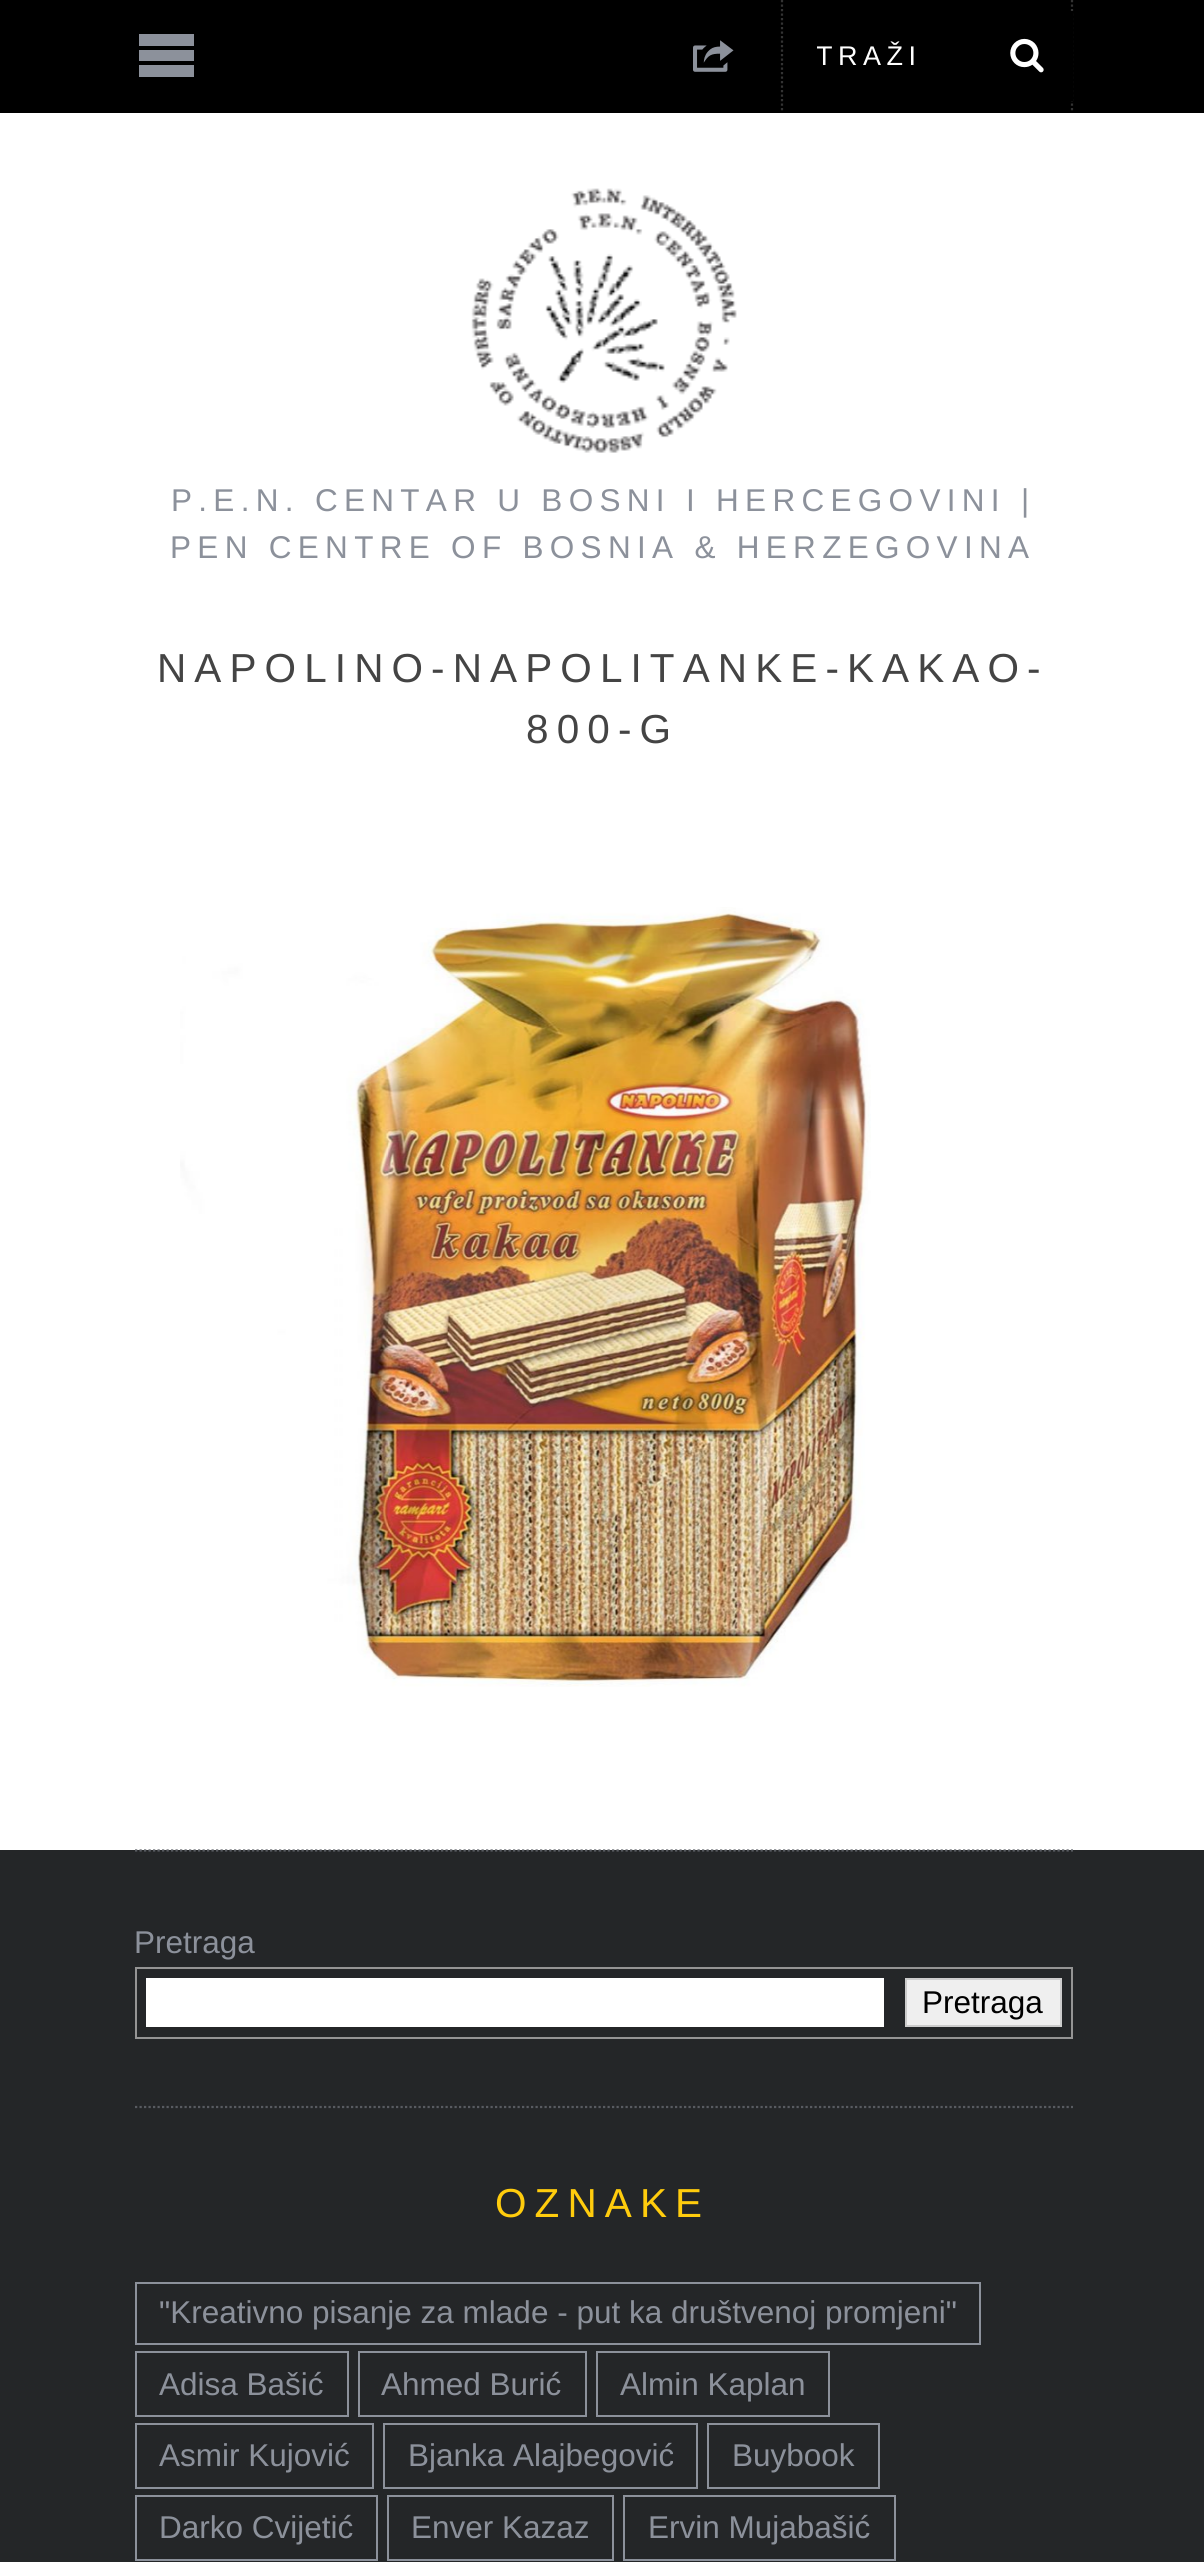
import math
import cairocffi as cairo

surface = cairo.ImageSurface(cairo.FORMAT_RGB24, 1204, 2562)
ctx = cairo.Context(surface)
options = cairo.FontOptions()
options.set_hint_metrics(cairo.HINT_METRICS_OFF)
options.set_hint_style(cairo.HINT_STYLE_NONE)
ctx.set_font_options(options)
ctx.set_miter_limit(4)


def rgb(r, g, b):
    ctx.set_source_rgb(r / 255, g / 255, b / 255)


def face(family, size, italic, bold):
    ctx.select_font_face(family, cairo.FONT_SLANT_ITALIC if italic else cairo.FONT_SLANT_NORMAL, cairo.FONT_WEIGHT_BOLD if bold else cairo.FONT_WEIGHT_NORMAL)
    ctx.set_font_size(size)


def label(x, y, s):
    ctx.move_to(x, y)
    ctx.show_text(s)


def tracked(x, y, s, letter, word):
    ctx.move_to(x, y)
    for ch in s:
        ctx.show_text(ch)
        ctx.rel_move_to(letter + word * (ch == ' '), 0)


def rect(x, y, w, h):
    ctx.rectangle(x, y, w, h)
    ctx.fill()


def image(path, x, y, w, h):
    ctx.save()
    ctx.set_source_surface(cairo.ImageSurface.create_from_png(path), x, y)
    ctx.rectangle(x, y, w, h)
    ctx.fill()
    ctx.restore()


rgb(255, 255, 255)
ctx.paint()
rgb(0, 0, 0)
rect(0, 0, 1204, 113)
rgb(140, 145, 155)
ctx.new_path()
ctx.move_to(139, 34)
ctx.line_to(194, 34)
ctx.line_to(194, 46)
ctx.line_to(139, 46)
ctx.close_path()
ctx.move_to(139, 50)
ctx.line_to(194, 50)
ctx.line_to(194, 61)
ctx.line_to(139, 61)
ctx.close_path()
ctx.move_to(139, 65)
ctx.line_to(194, 65)
ctx.line_to(194, 77)
ctx.line_to(139, 77)
ctx.close_path()
ctx.fill()
image('image0.png', 693, 40, 41, 32)
ctx.new_path()
ctx.move_to(1072, 0)
ctx.line_to(1072, 112.5)
rgb(51, 51, 51)
ctx.set_line_width(2.2)
ctx.set_dash([2.25, 2.25])
ctx.stroke()
ctx.new_path()
ctx.move_to(782, 0)
ctx.line_to(782, 112.5)
ctx.stroke()
ctx.save()
ctx.rectangle(817, 41, 254, 31)
ctx.clip()
face('Liberation Sans', 27, 0, 0)
rgb(255, 255, 255)
tracked(816, 65, 'TRAŽI', 5.5, 0)
ctx.restore()
rgb(0, 0, 0)
rect(1070, 11, 3, 90)
image('image1.png', 1010, 38, 34, 35)
image('image2.png', 471, 188, 266, 265)
face('Liberation Sans', 31.5, 0, 0)
rgb(140, 145, 155)
tracked(171, 511, 'P.E.N. CENTAR U BOSNI I HERCEGOVINI |', 6.3, 0)
tracked(170, 558, 'PEN CENTRE OF BOSNIA & HERZEGOVINA', 6.3, 0)
face('Liberation Sans', 40.5, 0, 0)
rgb(68, 68, 68)
tracked(157, 682, 'NAPOLINO-NAPOLITANKE-KAKAO-', 8.1, 0)
tracked(526, 743, '800-G', 8.1, 0)
image('image3.png', 180, 907, 691, 780)
rgb(36, 38, 40)
rect(0, 1850, 1204, 712)
ctx.new_path()
ctx.move_to(135, 1850.5)
ctx.line_to(1073, 1850.5)
rgb(88, 91, 97)
ctx.stroke()
face('Liberation Sans', 31.5, 0, 0)
rgb(140, 145, 155)
label(134, 1953, 'Pretraga')
ctx.rectangle(136, 1968, 936, 70)
rgb(148, 148, 148)
ctx.set_line_width(2)
ctx.set_dash([])
ctx.stroke()
rgb(255, 255, 255)
rect(146, 1978, 738, 49)
rgb(239, 239, 239)
ctx.rectangle(906, 1979, 155, 47)
ctx.fill_preserve()
rgb(204, 204, 204)
ctx.stroke()
rgb(0, 0, 0)
label(922, 2013, 'Pretraga')
ctx.new_path()
ctx.move_to(135, 2107)
ctx.line_to(1073, 2107)
rgb(88, 91, 97)
ctx.set_line_width(2.2)
ctx.set_dash([2.25, 2.25])
ctx.stroke()
face('Liberation Sans', 40.5, 0, 0)
rgb(255, 204, 13)
tracked(495, 2217, 'OZNAKE', 8.1, 0)
ctx.rectangle(136, 2283, 844, 61)
rgb(140, 145, 155)
ctx.set_line_width(2)
ctx.set_dash([])
ctx.stroke()
face('Liberation Sans', 31.5, 0, 0)
label(159, 2323, '"Kreativno pisanje za mlade - put ka društvenoj promjeni"')
ctx.rectangle(136, 2352, 212, 64)
ctx.stroke()
label(159, 2395, 'Adisa Bašić')
ctx.rectangle(359, 2352, 227, 64)
ctx.stroke()
label(381, 2395, 'Ahmed Burić')
ctx.rectangle(597, 2352, 232, 64)
ctx.stroke()
label(620, 2395, 'Almin Kaplan')
ctx.rectangle(136, 2424, 237, 64)
ctx.stroke()
label(159, 2466, 'Asmir Kujović')
ctx.rectangle(384, 2424, 313, 64)
ctx.stroke()
label(408, 2466, 'Bjanka Alajbegović')
ctx.rectangle(708, 2424, 171, 64)
ctx.stroke()
label(732, 2466, 'Buybook')
ctx.rectangle(136, 2496, 241, 64)
ctx.stroke()
label(159, 2538, 'Darko Cvijetić')
ctx.rectangle(388, 2496, 225, 64)
ctx.stroke()
label(411, 2538, 'Enver Kazaz')
ctx.rectangle(624, 2496, 271, 64)
ctx.stroke()
label(648, 2538, 'Ervin Mujabašić')
surface.write_to_png('render.png')
